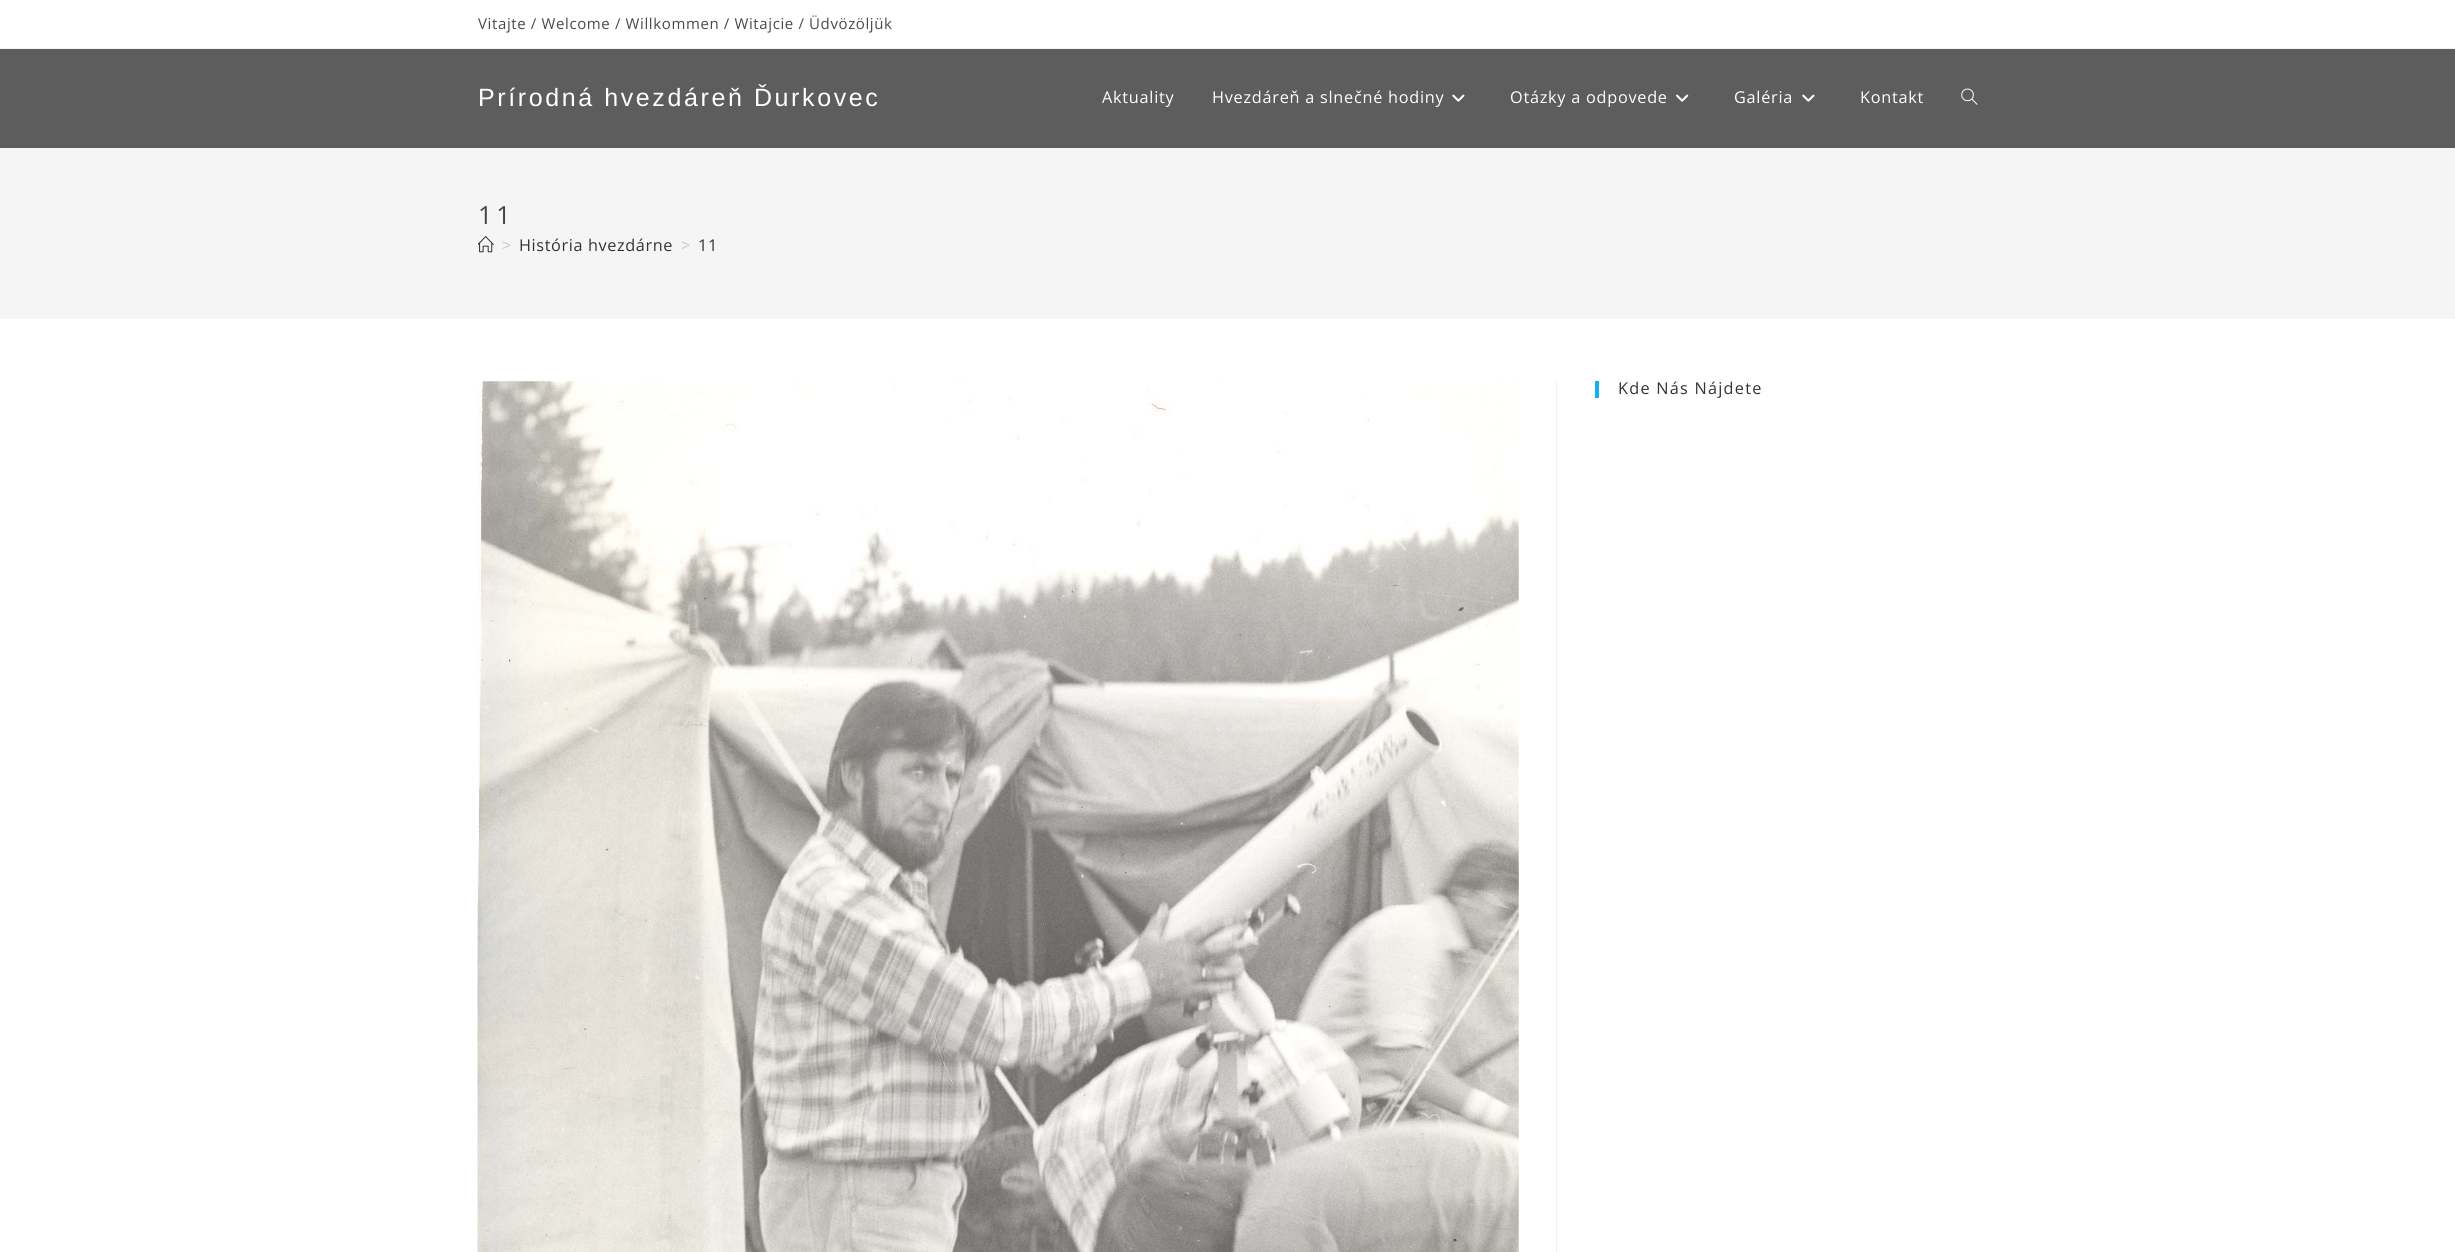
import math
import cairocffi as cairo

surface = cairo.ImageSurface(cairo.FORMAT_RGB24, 2455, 1252)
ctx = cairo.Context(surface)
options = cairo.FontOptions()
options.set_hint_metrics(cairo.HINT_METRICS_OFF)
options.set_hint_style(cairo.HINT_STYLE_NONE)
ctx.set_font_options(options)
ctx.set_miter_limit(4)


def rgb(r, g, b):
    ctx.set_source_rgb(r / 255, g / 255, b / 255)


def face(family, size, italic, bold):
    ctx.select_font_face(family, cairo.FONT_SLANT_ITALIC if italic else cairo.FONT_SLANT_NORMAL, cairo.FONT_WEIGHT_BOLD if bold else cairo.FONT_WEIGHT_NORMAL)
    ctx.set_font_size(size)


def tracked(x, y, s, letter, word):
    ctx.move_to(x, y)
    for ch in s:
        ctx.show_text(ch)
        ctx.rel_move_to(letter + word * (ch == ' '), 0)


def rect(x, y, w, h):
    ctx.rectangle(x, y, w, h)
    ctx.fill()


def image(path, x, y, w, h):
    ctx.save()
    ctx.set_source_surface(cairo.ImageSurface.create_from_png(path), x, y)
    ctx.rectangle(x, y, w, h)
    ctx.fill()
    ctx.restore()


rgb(255, 255, 255)
ctx.paint()
rgb(241, 241, 241)
rect(0, 48, 2455, 1)
face('Open Sans', 15, 0, 0)
rgb(74, 74, 74)
tracked(478, 29, 'Vitajte / Welcome / Willkommen / Witajcie / Üdvözöljük', 0.62, 0)
rgb(93, 93, 93)
rect(0, 49, 2455, 99)
face('Liberation Sans', 25, 0, 0)
rgb(255, 255, 255)
tracked(478, 106, 'Prírodná hvezdáreň Ďurkovec', 2.6, 0)
face('Open Sans', 16.25, 0, 0)
tracked(1102, 103, 'Aktuality', 0.75, 0)
tracked(1212, 103, 'Hvezdáreň a slnečné hodiny', 0.75, 0)
image('image0.png', 1452, 94, 13, 8)
tracked(1510, 103, 'Otázky a odpovede', 0.75, 0)
image('image1.png', 1676, 94, 13, 8)
tracked(1734, 103, 'Galéria', 0.75, 0)
image('image0.png', 1802, 94, 13, 8)
tracked(1860, 103, 'Kontakt', 0.75, 0)
image('image2.png', 1961, 88, 17, 17)
rgb(245, 245, 245)
rect(0, 148, 2455, 171)
face('Open Sans', 25, 0, 0)
rgb(68, 68, 68)
tracked(478, 224, '11', 4, 0)
image('image3.png', 478, 236, 16, 17)
face('Open Sans', 16.25, 0, 0)
rgb(198, 198, 198)
tracked(502, 251, '>', 0.62, 0)
rgb(51, 51, 51)
tracked(519, 251, 'História hvezdárne', 0.62, 0)
rgb(198, 198, 198)
tracked(681, 251, '>', 0.62, 0)
rgb(51, 51, 51)
tracked(698, 251, '11', 0.62, 0)
rgb(241, 241, 241)
rect(1556, 381, 1, 871)
image('image4.png', 477, 381, 1042, 871)
rgb(19, 175, 240)
rect(1595, 381, 4, 17)
rgb(51, 51, 51)
tracked(1618, 394, 'Kde Nás Nájdete', 1.25, 0)
surface.write_to_png('render.png')
